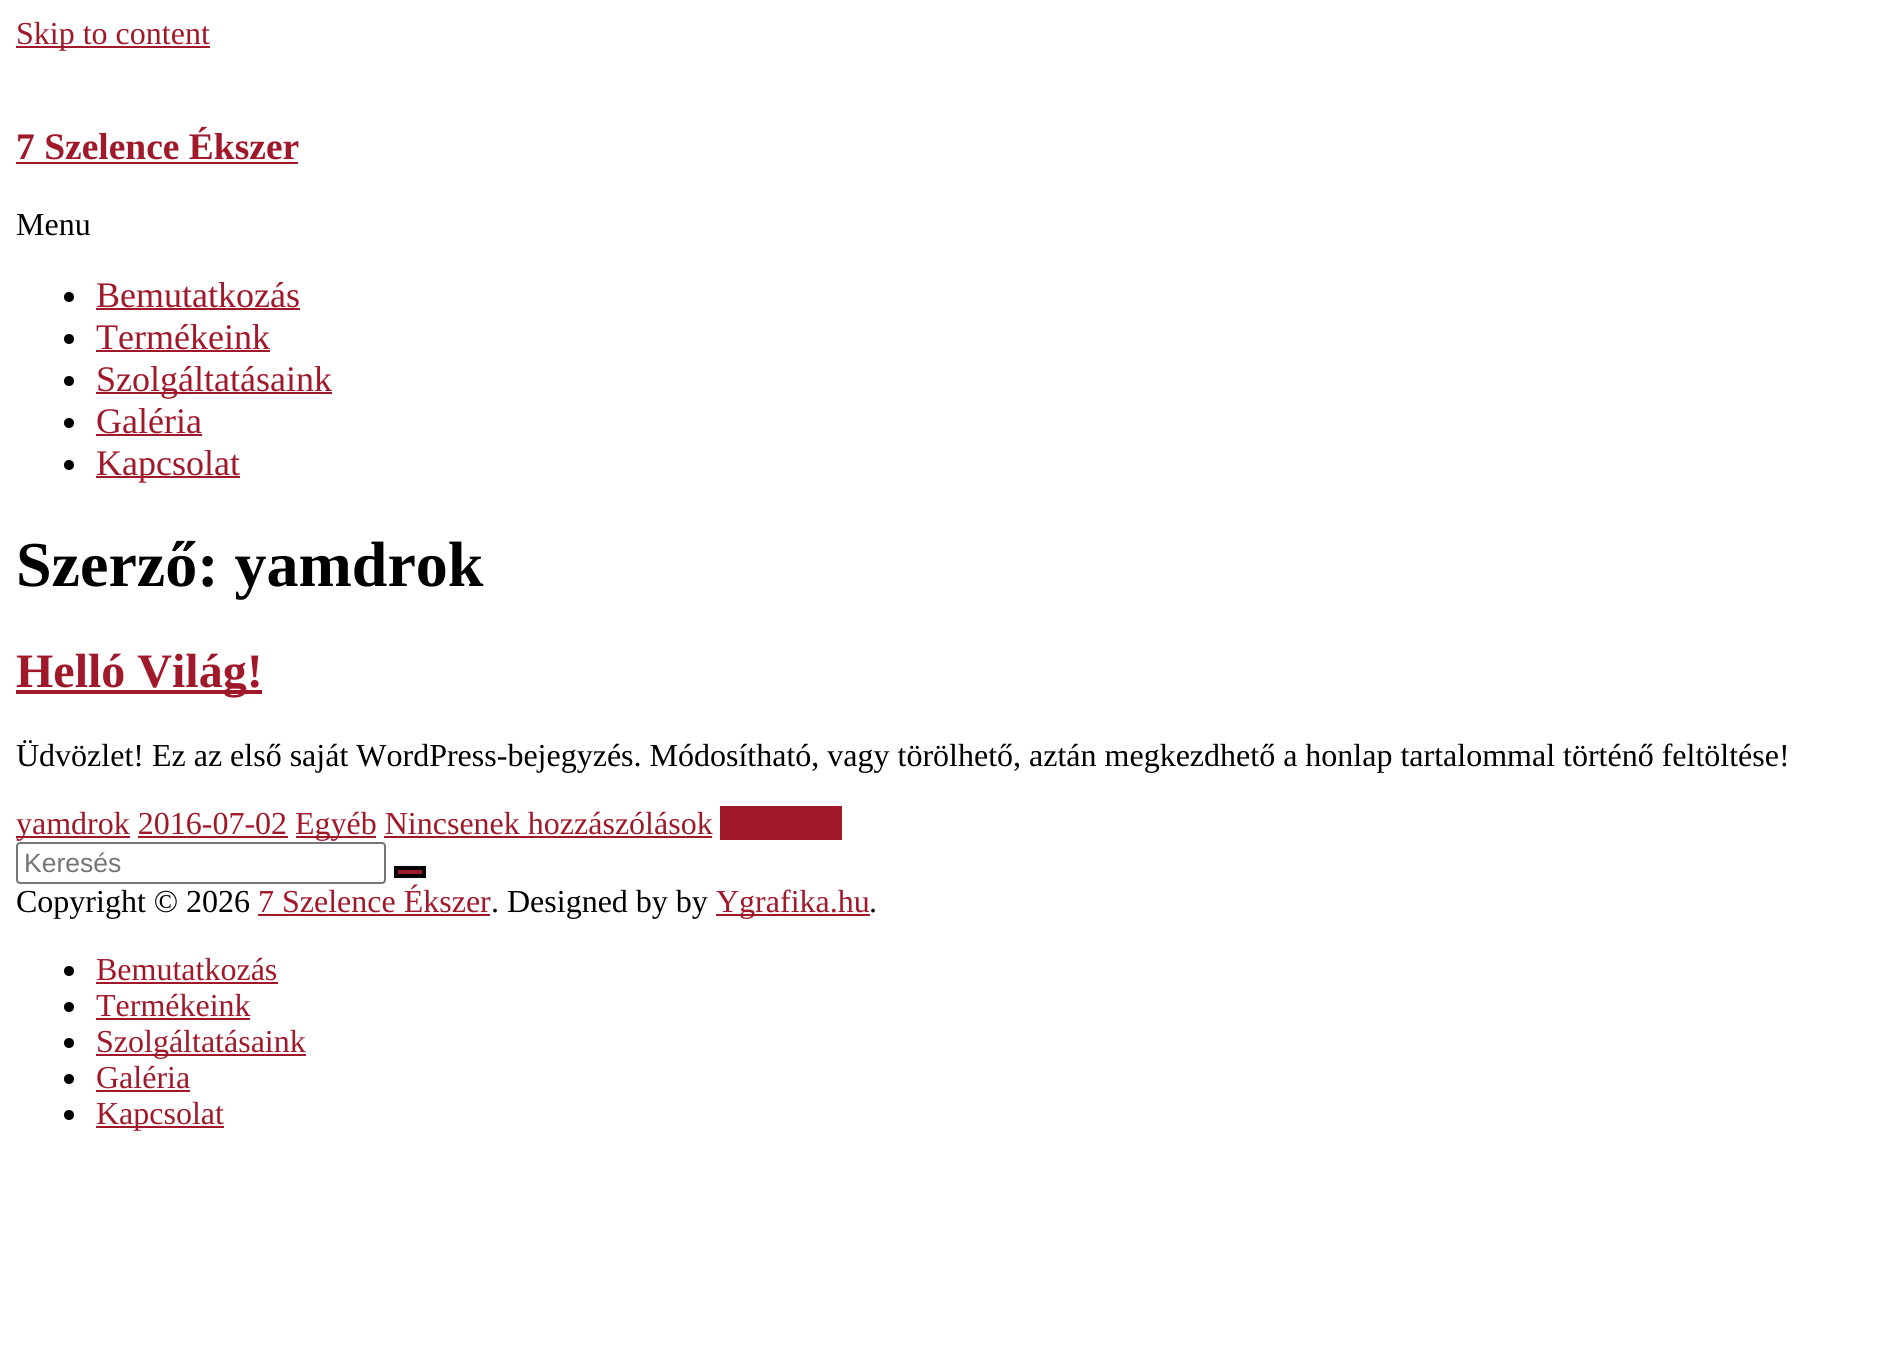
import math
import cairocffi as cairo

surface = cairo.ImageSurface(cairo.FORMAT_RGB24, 1898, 1366)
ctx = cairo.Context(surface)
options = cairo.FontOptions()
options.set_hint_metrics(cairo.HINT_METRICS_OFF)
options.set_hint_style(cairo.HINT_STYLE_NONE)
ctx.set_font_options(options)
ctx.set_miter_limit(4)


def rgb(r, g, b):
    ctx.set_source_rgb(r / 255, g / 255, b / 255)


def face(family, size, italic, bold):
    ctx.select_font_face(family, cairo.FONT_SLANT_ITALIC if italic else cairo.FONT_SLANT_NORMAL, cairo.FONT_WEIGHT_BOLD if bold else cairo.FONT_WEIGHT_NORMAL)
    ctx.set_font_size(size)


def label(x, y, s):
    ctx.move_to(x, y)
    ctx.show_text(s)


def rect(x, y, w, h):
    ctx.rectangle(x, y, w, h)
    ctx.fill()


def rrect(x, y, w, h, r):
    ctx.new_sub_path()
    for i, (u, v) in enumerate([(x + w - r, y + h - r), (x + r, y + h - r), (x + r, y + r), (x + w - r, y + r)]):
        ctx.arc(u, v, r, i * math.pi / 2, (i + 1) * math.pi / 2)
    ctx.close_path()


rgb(255, 255, 255)
ctx.paint()
rgb(160, 25, 42)
rect(16, 46, 194, 2)
face('Liberation Serif', 32, 0, 0)
label(16, 44, 'Skip to content')
face('Liberation Serif', 37.5, 0, 1)
label(16, 159, '7 Szelence Ékszer')
rect(16, 162, 282, 2)
face('Liberation Serif', 32, 0, 0)
rgb(0, 0, 0)
label(16, 235, 'Menu')
ctx.new_path()
ctx.arc(69, 297, 5, 0, 2 * math.pi)
ctx.fill()
face('Liberation Serif', 36, 0, 0)
rgb(160, 25, 42)
label(96, 307, 'Bemutatkozás')
rect(96, 308, 204, 2)
rgb(0, 0, 0)
ctx.new_path()
ctx.arc(69, 339, 5, 0, 2 * math.pi)
ctx.fill()
rgb(160, 25, 42)
label(96, 349, 'Termékeink')
rect(96, 350, 174, 2)
rgb(0, 0, 0)
ctx.new_path()
ctx.arc(69, 381, 5, 0, 2 * math.pi)
ctx.fill()
rgb(160, 25, 42)
rect(96, 392, 236, 2)
label(96, 391, 'Szolgáltatásaink')
rgb(0, 0, 0)
ctx.new_path()
ctx.arc(69, 423, 5, 0, 2 * math.pi)
ctx.fill()
rgb(160, 25, 42)
label(96, 433, 'Galéria')
rect(96, 434, 106, 2)
rgb(0, 0, 0)
ctx.new_path()
ctx.arc(69, 465, 5, 0, 2 * math.pi)
ctx.fill()
rgb(160, 25, 42)
rect(96, 476, 144, 2)
label(96, 475, 'Kapcsolat')
face('Liberation Serif', 64, 0, 1)
rgb(0, 0, 0)
label(16, 586, 'Szerző: yamdrok')
rgb(160, 25, 42)
rect(16, 690, 246, 4)
face('Liberation Serif', 48, 0, 1)
label(16, 687, 'Helló Világ!')
face('Liberation Serif', 32, 0, 0)
rgb(0, 0, 0)
label(16, 766, 'Üdvözlet! Ez az első saját WordPress-bejegyzés. Módosítható, vagy törölhető, aztán megkezdhető a honlap tartalommal történő feltöltése!')
rgb(160, 25, 42)
rect(16, 836, 114, 2)
label(16, 834, 'yamdrok 2016-07-02')
rect(296, 836, 80, 2)
label(295, 834, 'Egyéb Nincsenek hozzászólások')
rect(720, 806, 122, 34)
rect(138, 836, 150, 2)
rect(384, 836, 328, 2)
rrect(17, 843, 368, 40, 3)
rgb(118, 118, 118)
ctx.stroke()
face('Liberation Sans', 26.5, 0, 0)
rgb(117, 117, 117)
label(24, 872, 'Keresés')
rgb(160, 25, 42)
ctx.rectangle(396, 868, 28, 8)
ctx.fill_preserve()
rgb(0, 0, 0)
ctx.set_line_width(4)
ctx.stroke()
face('Liberation Serif', 32, 0, 0)
label(16, 912, 'Copyright © 2026')
rgb(160, 25, 42)
label(258, 912, '7 Szelence Ékszer')
rect(258, 914, 232, 2)
rgb(0, 0, 0)
label(491, 912, '. Designed by by')
rgb(160, 25, 42)
rect(716, 914, 154, 2)
label(716, 912, 'Ygrafika.hu')
rgb(0, 0, 0)
label(869, 912, '.')
ctx.new_path()
ctx.arc(69, 971, 5, 0, 2 * math.pi)
ctx.fill()
rgb(160, 25, 42)
label(96, 980, 'Bemutatkozás')
rect(96, 982, 182, 2)
rgb(0, 0, 0)
ctx.new_path()
ctx.arc(69, 1007, 5, 0, 2 * math.pi)
ctx.fill()
rgb(160, 25, 42)
label(96, 1016, 'Termékeink')
rect(96, 1018, 154, 2)
rgb(0, 0, 0)
ctx.new_path()
ctx.arc(69, 1043, 5, 0, 2 * math.pi)
ctx.fill()
rgb(160, 25, 42)
rect(96, 1054, 210, 2)
label(96, 1052, 'Szolgáltatásaink')
rgb(0, 0, 0)
ctx.new_path()
ctx.arc(69, 1079, 5, 0, 2 * math.pi)
ctx.fill()
rgb(160, 25, 42)
label(96, 1088, 'Galéria')
rect(96, 1090, 94, 2)
rgb(0, 0, 0)
ctx.new_path()
ctx.arc(69, 1115, 5, 0, 2 * math.pi)
ctx.fill()
rgb(160, 25, 42)
rect(96, 1126, 128, 2)
label(96, 1124, 'Kapcsolat')
surface.write_to_png('render.png')
